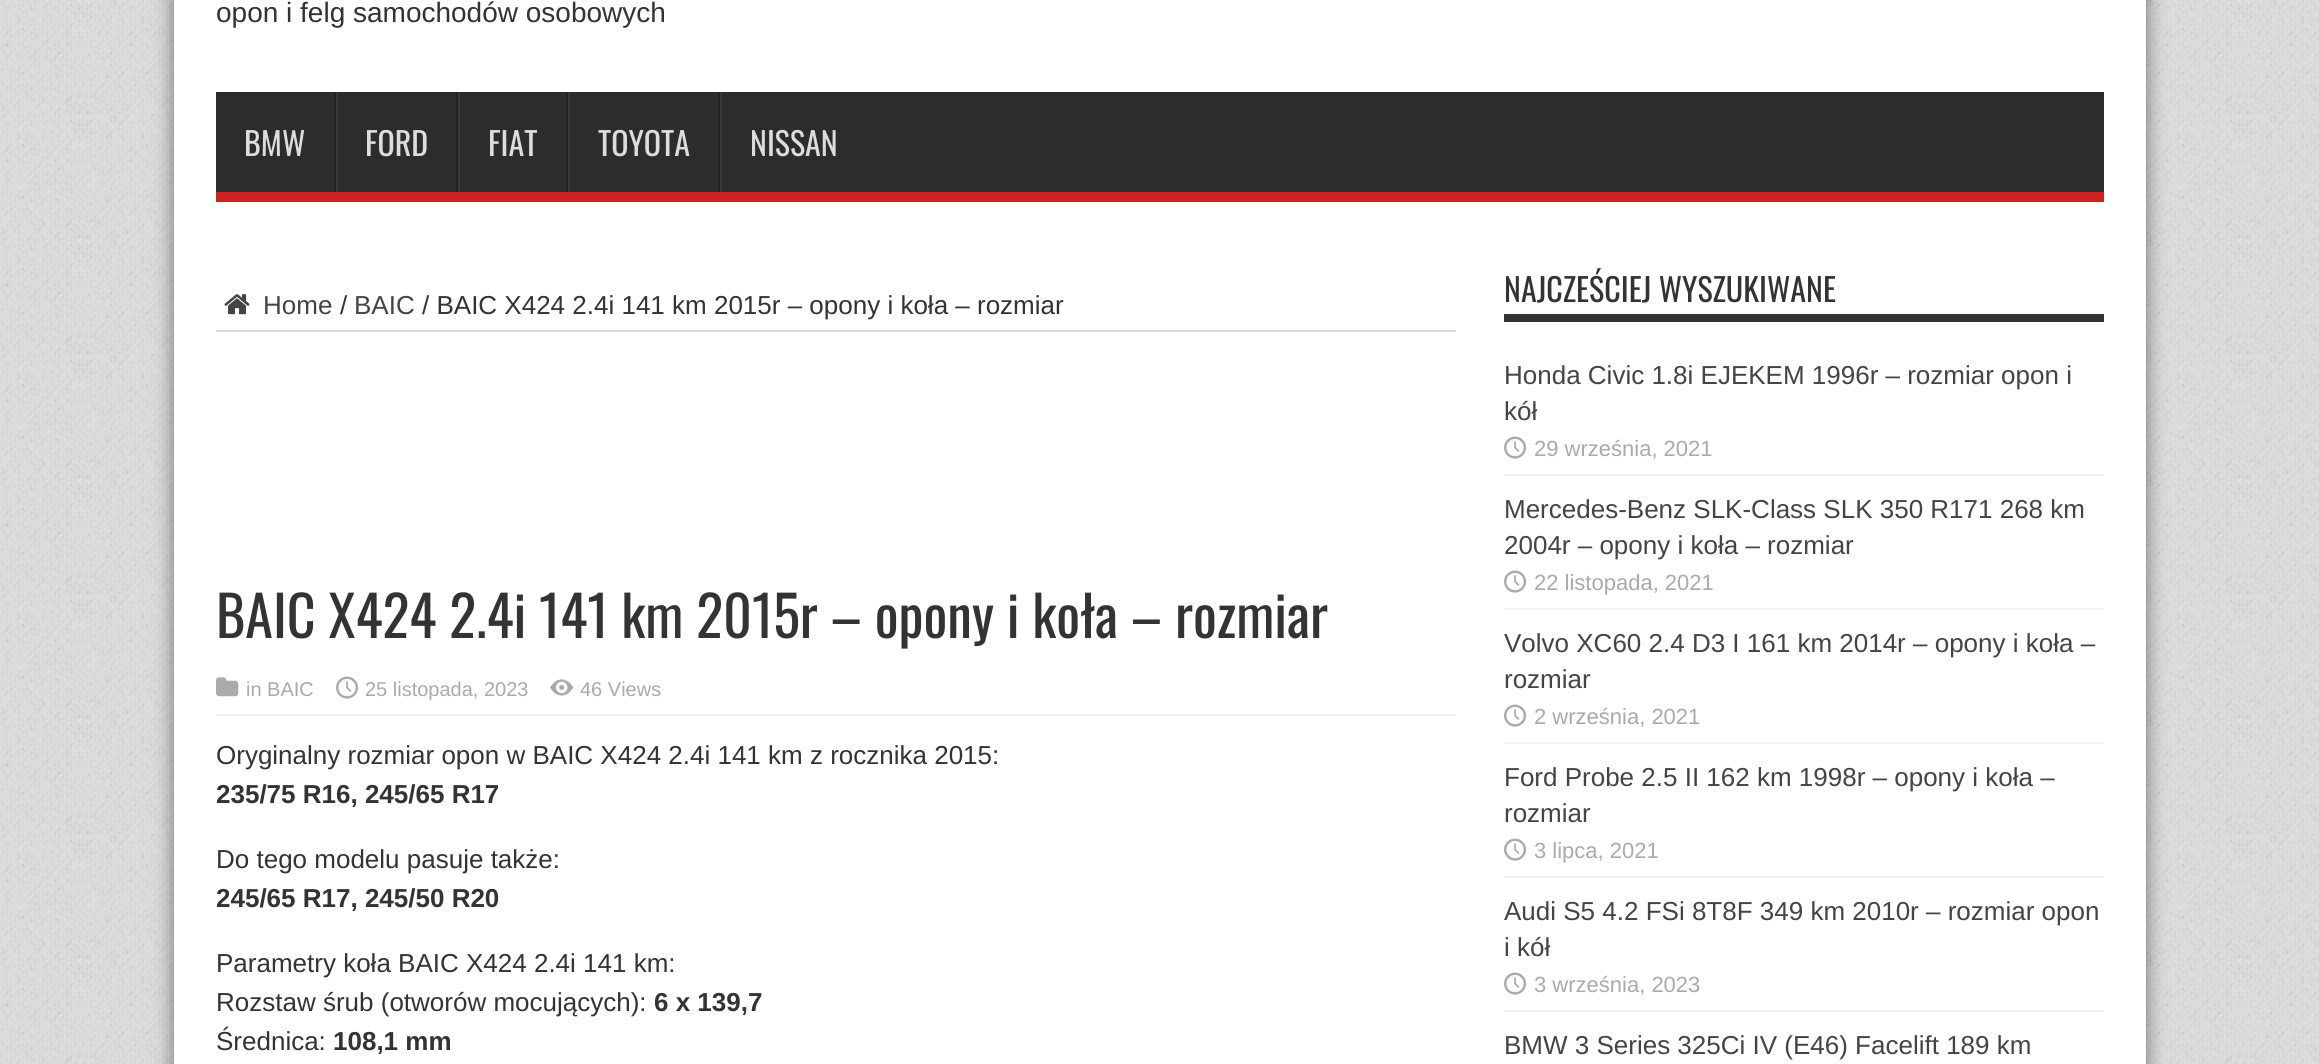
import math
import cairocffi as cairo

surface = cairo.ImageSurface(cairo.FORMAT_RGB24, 2319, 1064)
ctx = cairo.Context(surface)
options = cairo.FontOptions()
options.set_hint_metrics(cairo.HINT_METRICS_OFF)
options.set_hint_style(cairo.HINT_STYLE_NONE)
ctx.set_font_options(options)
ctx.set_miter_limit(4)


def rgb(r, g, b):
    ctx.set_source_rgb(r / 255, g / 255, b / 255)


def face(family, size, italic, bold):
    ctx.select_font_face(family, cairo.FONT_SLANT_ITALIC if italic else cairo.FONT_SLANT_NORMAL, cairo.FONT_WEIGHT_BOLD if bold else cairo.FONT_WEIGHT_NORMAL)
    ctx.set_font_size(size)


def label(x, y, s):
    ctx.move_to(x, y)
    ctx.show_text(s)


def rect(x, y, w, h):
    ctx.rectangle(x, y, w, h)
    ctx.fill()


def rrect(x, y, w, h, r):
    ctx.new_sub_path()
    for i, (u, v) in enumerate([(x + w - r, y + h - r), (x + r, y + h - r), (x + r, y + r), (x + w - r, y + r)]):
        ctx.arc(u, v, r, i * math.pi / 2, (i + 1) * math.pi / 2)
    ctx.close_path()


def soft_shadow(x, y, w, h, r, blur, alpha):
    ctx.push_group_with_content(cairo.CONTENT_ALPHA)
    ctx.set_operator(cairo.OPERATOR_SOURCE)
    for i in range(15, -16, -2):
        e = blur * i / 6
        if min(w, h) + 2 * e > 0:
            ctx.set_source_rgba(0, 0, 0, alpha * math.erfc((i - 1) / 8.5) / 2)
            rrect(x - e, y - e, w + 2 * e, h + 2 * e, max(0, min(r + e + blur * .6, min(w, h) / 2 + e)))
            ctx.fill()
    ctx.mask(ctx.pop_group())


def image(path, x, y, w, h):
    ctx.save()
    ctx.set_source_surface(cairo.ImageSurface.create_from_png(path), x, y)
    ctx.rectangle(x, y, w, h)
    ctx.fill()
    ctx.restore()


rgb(222, 222, 222)
ctx.paint()
image('image0.png', 0, 0, 2319, 1064)
rgb(0, 0, 0)
soft_shadow(174, -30, 1972, 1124, 0, 10, 0.5)
rgb(255, 255, 255)
rect(174, 0, 1972, 1064)
face('Liberation Sans', 28, 0, 0)
rgb(51, 51, 51)
label(216, 22, 'opon i felg samochodów osobowych')
rgb(44, 44, 44)
rect(216, 92, 1888, 100)
rgb(205, 33, 34)
rect(216, 192, 1888, 10)
face('Oswald', 32, 0, 0)
rgb(221, 221, 221)
label(244, 156, 'BMW')
rgb(34, 34, 34)
rect(334, 92, 2, 100)
rgb(56, 56, 56)
rect(336, 92, 2, 100)
rgb(221, 221, 221)
label(365, 156, 'FORD')
rgb(34, 34, 34)
rect(456, 92, 2, 100)
rgb(56, 56, 56)
rect(458, 92, 2, 100)
rgb(221, 221, 221)
label(488, 156, 'FIAT')
rgb(34, 34, 34)
rect(566, 92, 2, 100)
rgb(56, 56, 56)
rect(568, 92, 2, 100)
rgb(221, 221, 221)
label(598, 156, 'TOYOTA')
rgb(34, 34, 34)
rect(718, 92, 2, 100)
rgb(56, 56, 56)
rect(720, 92, 2, 100)
rgb(221, 221, 221)
label(750, 156, 'NISSAN')
rect(216, 330, 1240, 2)
image('image1.png', 224, 294, 26, 21)
face('Liberation Sans', 26, 0, 0)
rgb(68, 68, 68)
label(263, 314, 'Home')
rgb(51, 51, 51)
label(340, 314, '/')
rgb(68, 68, 68)
label(354, 314, 'BAIC')
rgb(51, 51, 51)
label(422, 314, '/ BAIC X424 2.4i 141 km 2015r – opony i koła – rozmiar')
face('Oswald', 56, 0, 0)
label(216, 638, 'BAIC X424 2.4i 141 km 2015r – opony i koła – rozmiar')
rgb(242, 242, 242)
rect(216, 714, 1240, 2)
image('image2.png', 216, 677, 23, 20)
face('Liberation Sans', 20, 0, 0)
rgb(170, 170, 170)
label(246, 696, 'in BAIC')
image('image3.png', 336, 676, 23, 23)
label(365, 696, '25 listopada, 2023')
image('image4.png', 550, 679, 24, 17)
label(580, 696, '46 Views')
face('Liberation Sans', 26, 0, 0)
rgb(51, 51, 51)
label(216, 764, 'Oryginalny rozmiar opon w BAIC X424 2.4i 141 km z rocznika 2015:')
face('Liberation Sans', 26, 0, 1)
label(216, 803, '235/75 R16, 245/65 R17')
face('Liberation Sans', 26, 0, 0)
label(216, 868, 'Do tego modelu pasuje także:')
face('Liberation Sans', 26, 0, 1)
label(216, 907, '245/65 R17, 245/50 R20')
face('Liberation Sans', 26, 0, 0)
label(216, 972, 'Parametry koła BAIC X424 2.4i 141 km:')
label(216, 1011, 'Rozstaw śrub (otworów mocujących):')
face('Liberation Sans', 26, 0, 1)
label(654, 1011, '6 x 139,7')
face('Liberation Sans', 26, 0, 0)
label(216, 1050, 'Średnica:')
face('Liberation Sans', 26, 0, 1)
label(333, 1050, '108,1 mm')
rect(1504, 314, 600, 8)
face('Oswald', 32, 0, 0)
label(1504, 302, 'NAJCZEŚCIEJ WYSZUKIWANE')
rgb(242, 242, 242)
rect(1504, 474, 600, 2)
face('Liberation Sans', 26, 0, 0)
rgb(68, 68, 68)
label(1504, 384, 'Honda Civic 1.8i EJEKEM 1996r – rozmiar opon i')
label(1504, 420, 'kół')
image('image3.png', 1504, 436, 23, 23)
face('Liberation Sans', 22, 0, 0)
rgb(170, 170, 170)
label(1534, 456, '29 września, 2021')
rgb(242, 242, 242)
rect(1504, 608, 600, 2)
face('Liberation Sans', 26, 0, 0)
rgb(68, 68, 68)
label(1504, 518, 'Mercedes-Benz SLK-Class SLK 350 R171 268 km')
label(1504, 554, '2004r – opony i koła – rozmiar')
image('image3.png', 1504, 570, 23, 23)
face('Liberation Sans', 22, 0, 0)
rgb(170, 170, 170)
label(1534, 590, '22 listopada, 2021')
rgb(242, 242, 242)
rect(1504, 742, 600, 2)
face('Liberation Sans', 26, 0, 0)
rgb(68, 68, 68)
label(1504, 652, 'Volvo XC60 2.4 D3 I 161 km 2014r – opony i koła –')
label(1504, 688, 'rozmiar')
image('image3.png', 1504, 704, 23, 23)
face('Liberation Sans', 22, 0, 0)
rgb(170, 170, 170)
label(1534, 724, '2 września, 2021')
rgb(242, 242, 242)
rect(1504, 876, 600, 2)
face('Liberation Sans', 26, 0, 0)
rgb(68, 68, 68)
label(1504, 786, 'Ford Probe 2.5 II 162 km 1998r – opony i koła –')
label(1504, 822, 'rozmiar')
image('image3.png', 1504, 838, 23, 23)
face('Liberation Sans', 22, 0, 0)
rgb(170, 170, 170)
label(1534, 858, '3 lipca, 2021')
rgb(242, 242, 242)
rect(1504, 1010, 600, 2)
face('Liberation Sans', 26, 0, 0)
rgb(68, 68, 68)
label(1504, 920, 'Audi S5 4.2 FSi 8T8F 349 km 2010r – rozmiar opon')
label(1504, 956, 'i kół')
image('image3.png', 1504, 972, 23, 23)
face('Liberation Sans', 22, 0, 0)
rgb(170, 170, 170)
label(1534, 992, '3 września, 2023')
face('Liberation Sans', 26, 0, 0)
rgb(68, 68, 68)
label(1504, 1054, 'BMW 3 Series 325Ci IV (E46) Facelift 189 km')
surface.write_to_png('render.png')
